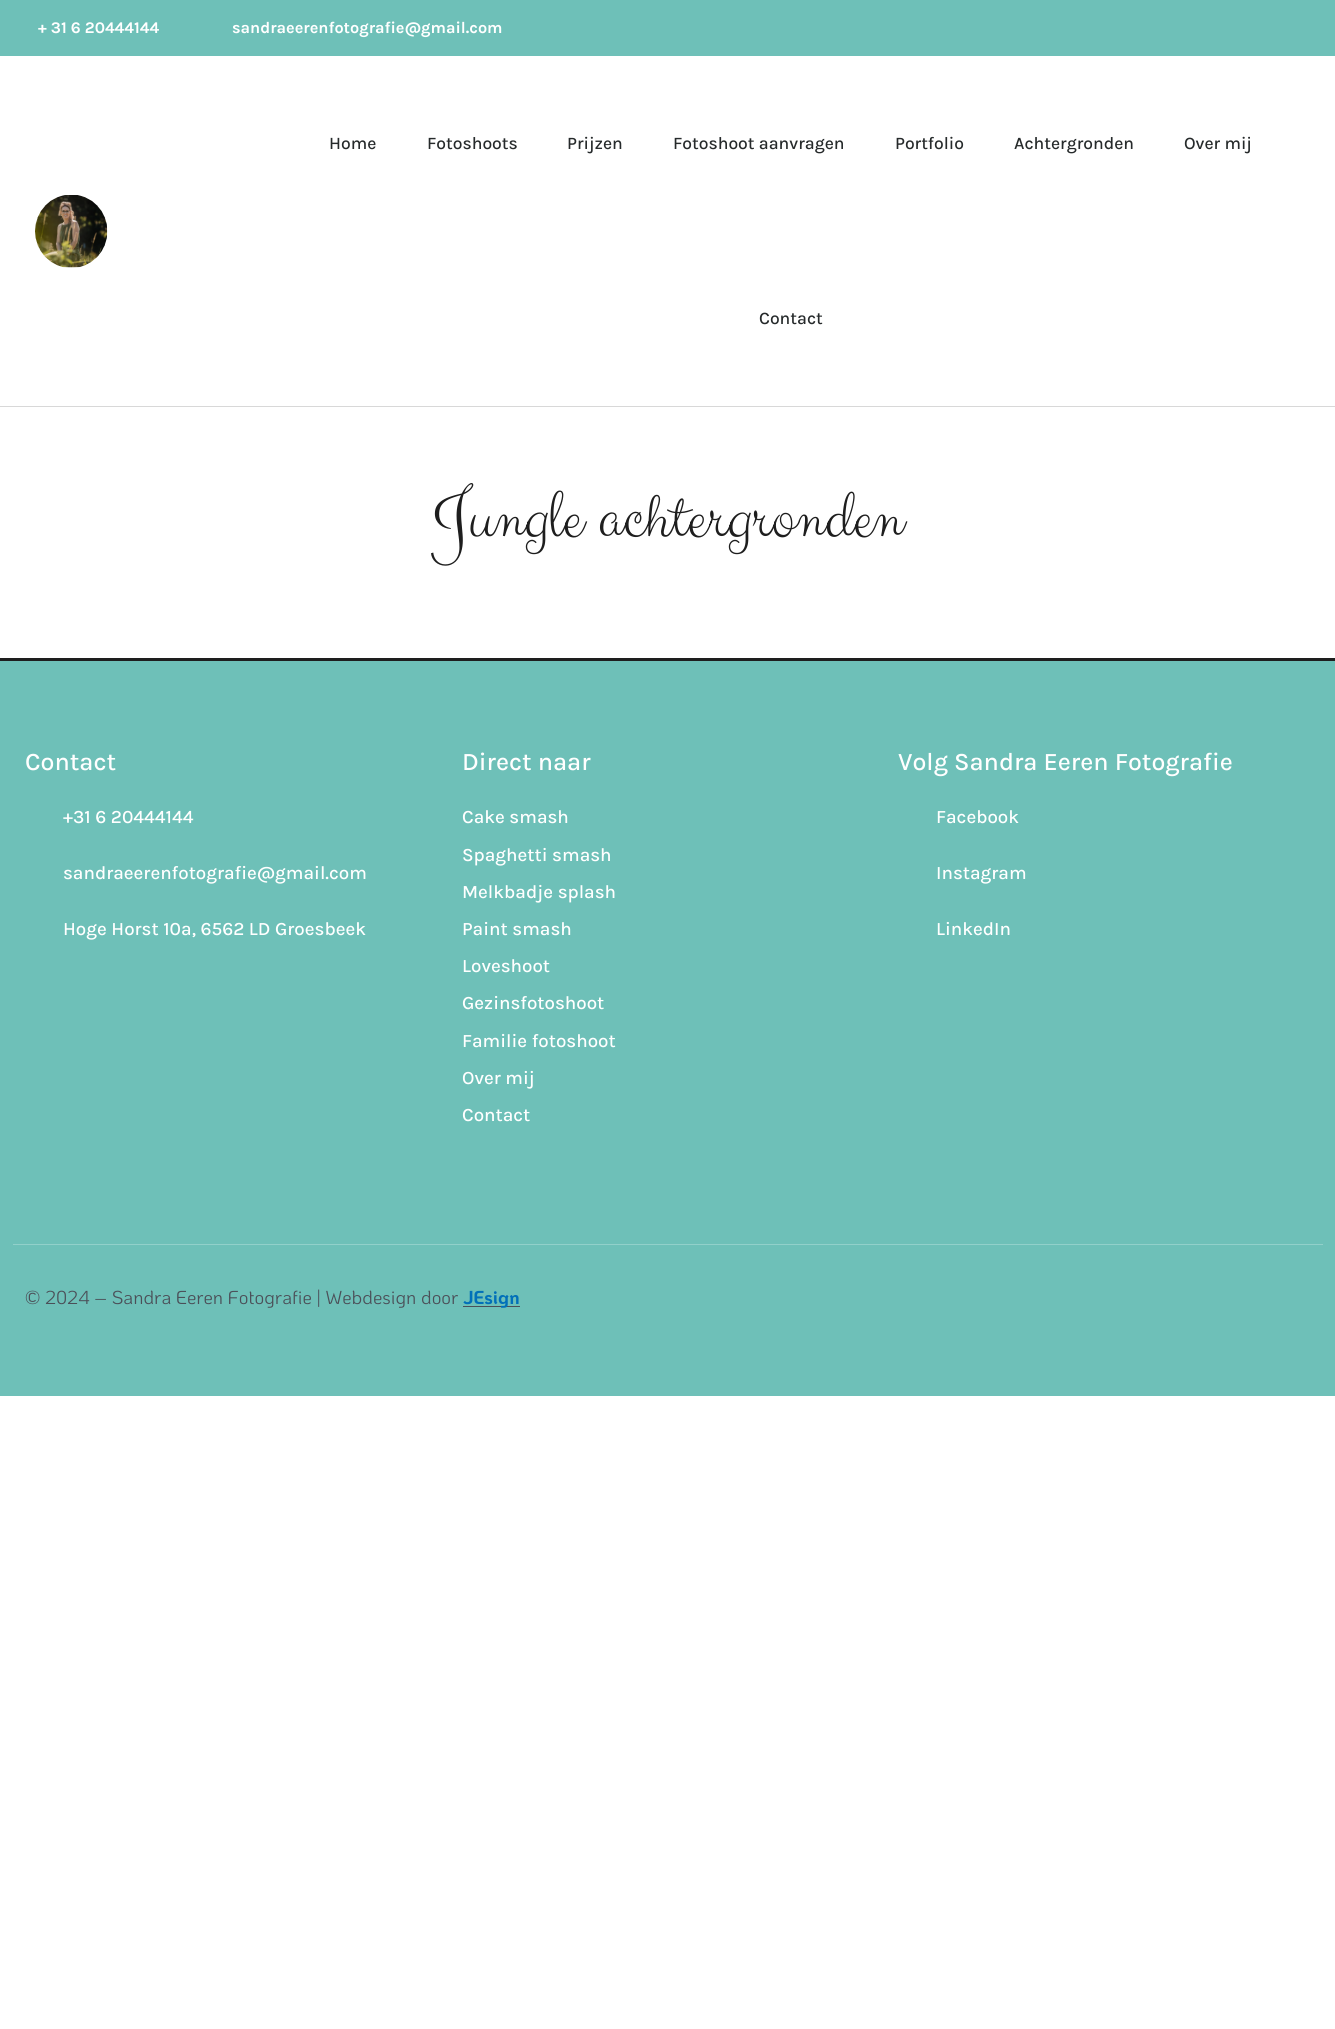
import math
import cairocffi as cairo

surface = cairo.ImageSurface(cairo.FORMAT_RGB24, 1335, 2029)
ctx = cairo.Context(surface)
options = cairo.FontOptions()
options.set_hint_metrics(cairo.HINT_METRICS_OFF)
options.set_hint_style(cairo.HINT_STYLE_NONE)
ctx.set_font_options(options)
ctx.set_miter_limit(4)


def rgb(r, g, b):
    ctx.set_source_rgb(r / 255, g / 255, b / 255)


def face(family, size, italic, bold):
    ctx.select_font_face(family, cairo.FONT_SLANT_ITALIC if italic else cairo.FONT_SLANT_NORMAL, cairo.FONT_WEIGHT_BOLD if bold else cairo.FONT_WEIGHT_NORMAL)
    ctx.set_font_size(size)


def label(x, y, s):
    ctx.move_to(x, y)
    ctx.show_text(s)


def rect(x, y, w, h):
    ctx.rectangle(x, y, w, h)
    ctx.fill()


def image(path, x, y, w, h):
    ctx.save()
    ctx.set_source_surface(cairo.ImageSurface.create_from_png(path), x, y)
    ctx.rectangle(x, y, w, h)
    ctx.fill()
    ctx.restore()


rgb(255, 255, 255)
ctx.paint()
rgb(110, 192, 184)
rect(0, 0, 1335, 56)
face('Karla', 16.25, 0, 1)
rgb(255, 255, 255)
label(38, 33, '+ 31 6 20444144')
label(232, 33, 'sandraeerenfotografie@gmail.com')
rgb(216, 216, 216)
rect(0, 406, 1335, 1)
image('image0.png', 35, 195, 73, 73)
face('Karla Medium', 17.5, 0, 0)
rgb(38, 42, 43)
label(329, 149, 'Home')
label(427, 149, 'Fotoshoots')
label(567, 149, 'Prijzen')
label(673, 149, 'Fotoshoot aanvragen')
label(895, 149, 'Portfolio')
label(1014, 149, 'Achtergronden')
label(1184, 149, 'Over mij')
label(759, 324, 'Contact')
face('Clicker Script', 70.25, 0, 0)
rgb(30, 30, 30)
label(431, 538, 'Jungle achtergronden')
rgb(110, 192, 184)
rect(0, 661, 1335, 735)
rgb(30, 30, 30)
rect(0, 658, 1335, 3)
face('Karla Medium', 25, 0, 0)
rgb(255, 255, 255)
label(25, 770, 'Contact')
face('Karla Medium', 18.75, 0, 0)
label(63, 823, '+31 6 20444144')
label(63, 879, 'sandraeerenfotografie@gmail.com')
label(63, 935, 'Hoge Horst 10a, 6562 LD Groesbeek')
face('Karla Medium', 25, 0, 0)
label(462, 770, 'Direct naar')
face('Karla Medium', 18.75, 0, 0)
label(462, 823, 'Cake smash')
label(462, 861, 'Spaghetti smash')
label(462, 898, 'Melkbadje splash')
label(462, 935, 'Paint smash')
label(462, 972, 'Loveshoot')
label(462, 1009, 'Gezinsfotoshoot')
label(462, 1047, 'Familie fotoshoot')
label(462, 1084, 'Over mij')
label(462, 1121, 'Contact')
face('Karla Medium', 25, 0, 0)
label(898, 770, 'Volg Sandra Eeren Fotografie')
face('Karla Medium', 18.75, 0, 0)
label(936, 823, 'Facebook')
label(936, 879, 'Instagram')
label(936, 935, 'LinkedIn')
rgb(146, 208, 202)
rect(13, 1244, 1310, 1)
face('KoHo', 18.75, 0, 0)
rgb(75, 79, 88)
label(25, 1304, '© 2024 – Sandra Eeren Fotografie | Webdesign door')
rect(463, 1306, 57, 1)
face('KoHo', 18.75, 0, 1)
rgb(1, 112, 185)
label(463, 1304, 'JEsign')
surface.write_to_png('render.png')
